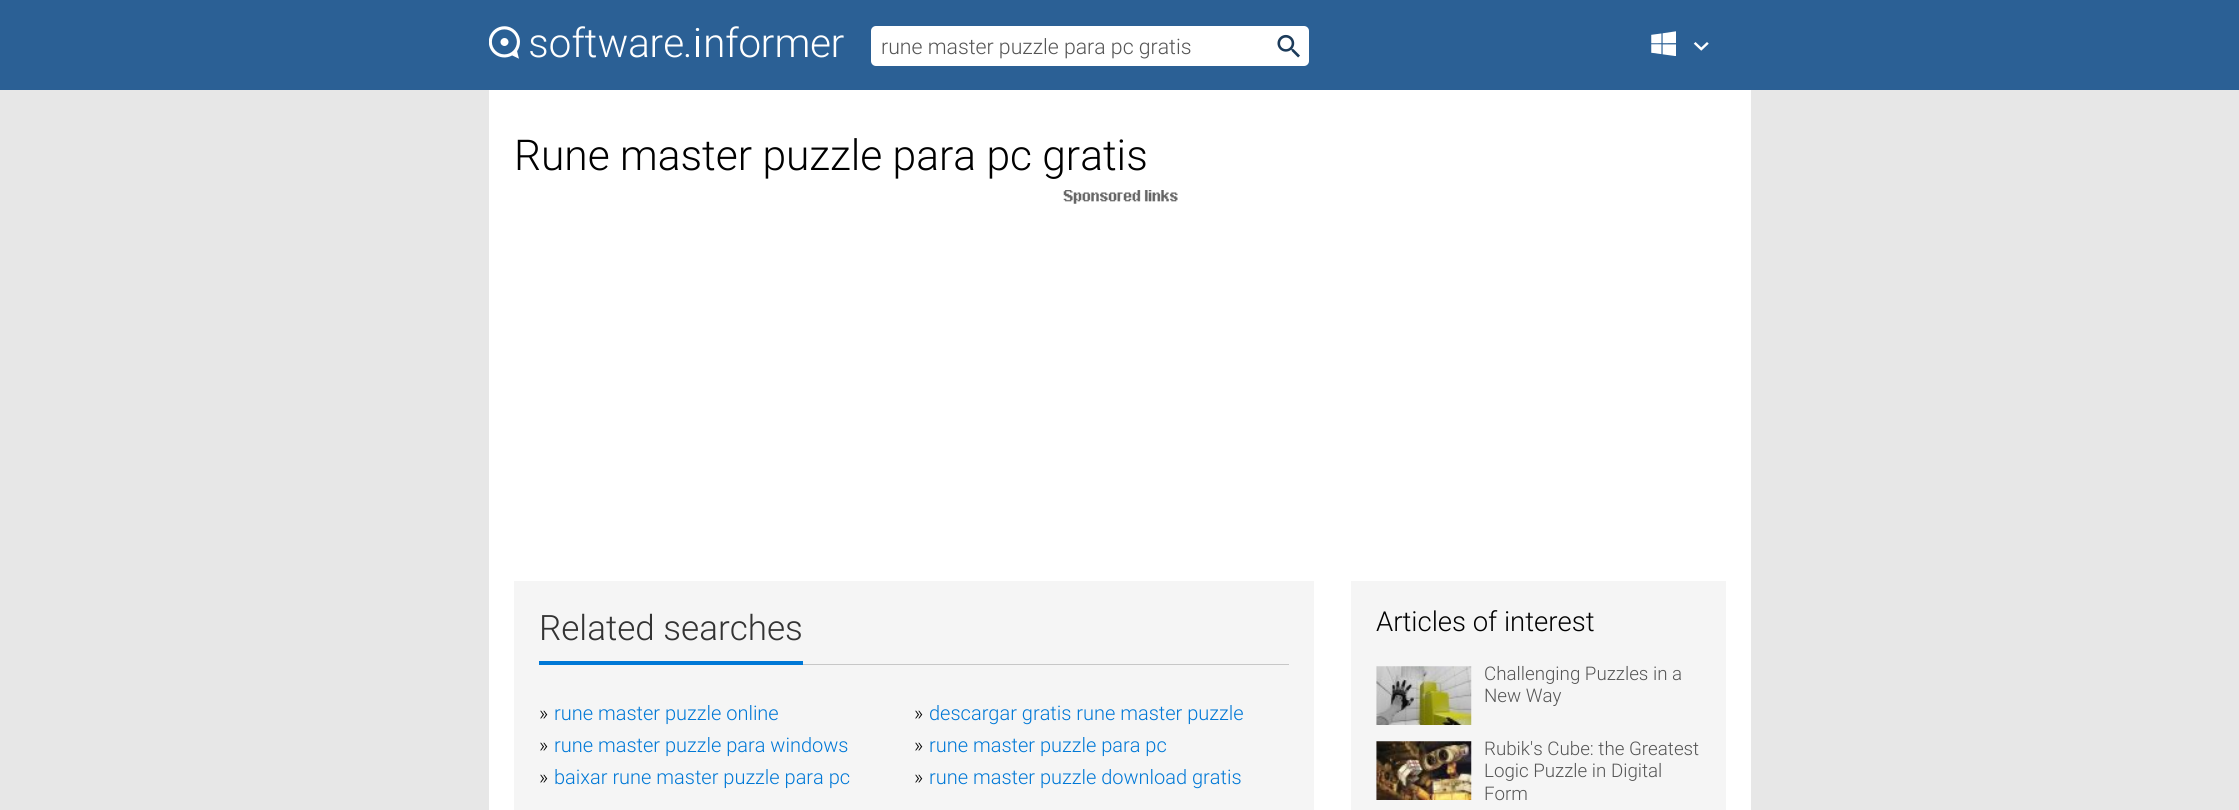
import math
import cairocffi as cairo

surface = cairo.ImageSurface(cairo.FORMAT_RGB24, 2239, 810)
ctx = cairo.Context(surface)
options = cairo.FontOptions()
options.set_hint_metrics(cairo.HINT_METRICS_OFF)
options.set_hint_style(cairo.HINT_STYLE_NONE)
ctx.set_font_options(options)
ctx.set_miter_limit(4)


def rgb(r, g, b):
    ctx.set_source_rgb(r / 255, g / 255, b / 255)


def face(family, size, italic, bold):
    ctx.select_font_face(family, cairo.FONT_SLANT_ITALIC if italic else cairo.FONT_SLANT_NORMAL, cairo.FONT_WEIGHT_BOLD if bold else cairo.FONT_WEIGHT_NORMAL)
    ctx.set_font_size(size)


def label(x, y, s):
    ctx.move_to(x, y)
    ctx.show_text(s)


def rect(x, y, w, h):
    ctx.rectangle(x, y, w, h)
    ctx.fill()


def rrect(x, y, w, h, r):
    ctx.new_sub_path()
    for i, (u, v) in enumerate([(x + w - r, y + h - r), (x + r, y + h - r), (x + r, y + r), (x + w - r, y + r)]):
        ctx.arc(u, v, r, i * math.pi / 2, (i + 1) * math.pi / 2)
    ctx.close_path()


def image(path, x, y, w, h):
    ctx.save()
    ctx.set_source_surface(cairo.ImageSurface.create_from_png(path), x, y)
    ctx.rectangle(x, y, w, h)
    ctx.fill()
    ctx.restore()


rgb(231, 231, 231)
ctx.paint()
rgb(43, 96, 149)
rect(0, 0, 2239, 90)
image('image0.png', 489, 26, 355, 33)
rgb(255, 255, 255)
rrect(871, 26, 438, 40, 5)
ctx.fill()
face('Roboto Light', 21.25, 0, 0)
rgb(85, 85, 85)
label(881, 54, 'rune master puzzle para pc gratis')
image('image1.png', 1277, 34, 23, 24)
image('image2.png', 1651, 31, 25, 25)
image('image3.png', 1693, 42, 16, 9)
rgb(255, 255, 255)
rect(489, 90, 1262, 720)
face('Roboto Light', 42.5, 0, 0)
rgb(0, 0, 0)
label(514, 170, 'Rune master puzzle para pc gratis')
image('image4.png', 1063, 190, 115, 14)
rgb(245, 245, 245)
rect(514, 581, 800, 229)
rgb(199, 199, 199)
rect(803, 664, 486, 1)
rgb(0, 120, 214)
rect(539, 661, 264, 4)
face('Roboto Light', 35, 0, 0)
rgb(51, 51, 51)
label(539, 640, 'Related searches')
face('Roboto Light', 20, 0, 0)
rgb(0, 0, 0)
label(539, 720, '»')
rgb(0, 120, 214)
label(554, 720, 'rune master puzzle online')
rgb(0, 0, 0)
label(914, 720, '»')
rgb(0, 120, 214)
label(929, 720, 'descargar gratis rune master puzzle')
rgb(0, 0, 0)
label(539, 752, '»')
rgb(0, 120, 214)
label(554, 752, 'rune master puzzle para windows')
rgb(0, 0, 0)
label(914, 752, '»')
rgb(0, 120, 214)
label(929, 752, 'rune master puzzle para pc')
rgb(0, 0, 0)
label(539, 784, '»')
rgb(0, 120, 214)
label(554, 784, 'baixar rune master puzzle para pc')
rgb(0, 0, 0)
label(914, 784, '»')
rgb(0, 120, 214)
label(929, 784, 'rune master puzzle download gratis')
rgb(245, 245, 245)
rect(1351, 581, 375, 229)
face('Roboto Light', 27.5, 0, 0)
rgb(0, 0, 0)
label(1376, 631, 'Articles of interest')
image('image5.png', 1376, 666, 96, 59)
face('Roboto Light', 18.75, 0, 0)
rgb(85, 85, 85)
label(1484, 680, 'Challenging Puzzles in a')
label(1484, 702, 'New Way')
image('image6.png', 1376, 741, 96, 59)
label(1484, 755, 'Rubik\'s Cube: the Greatest')
label(1484, 777, 'Logic Puzzle in Digital')
label(1484, 800, 'Form')
surface.write_to_png('render.png')
